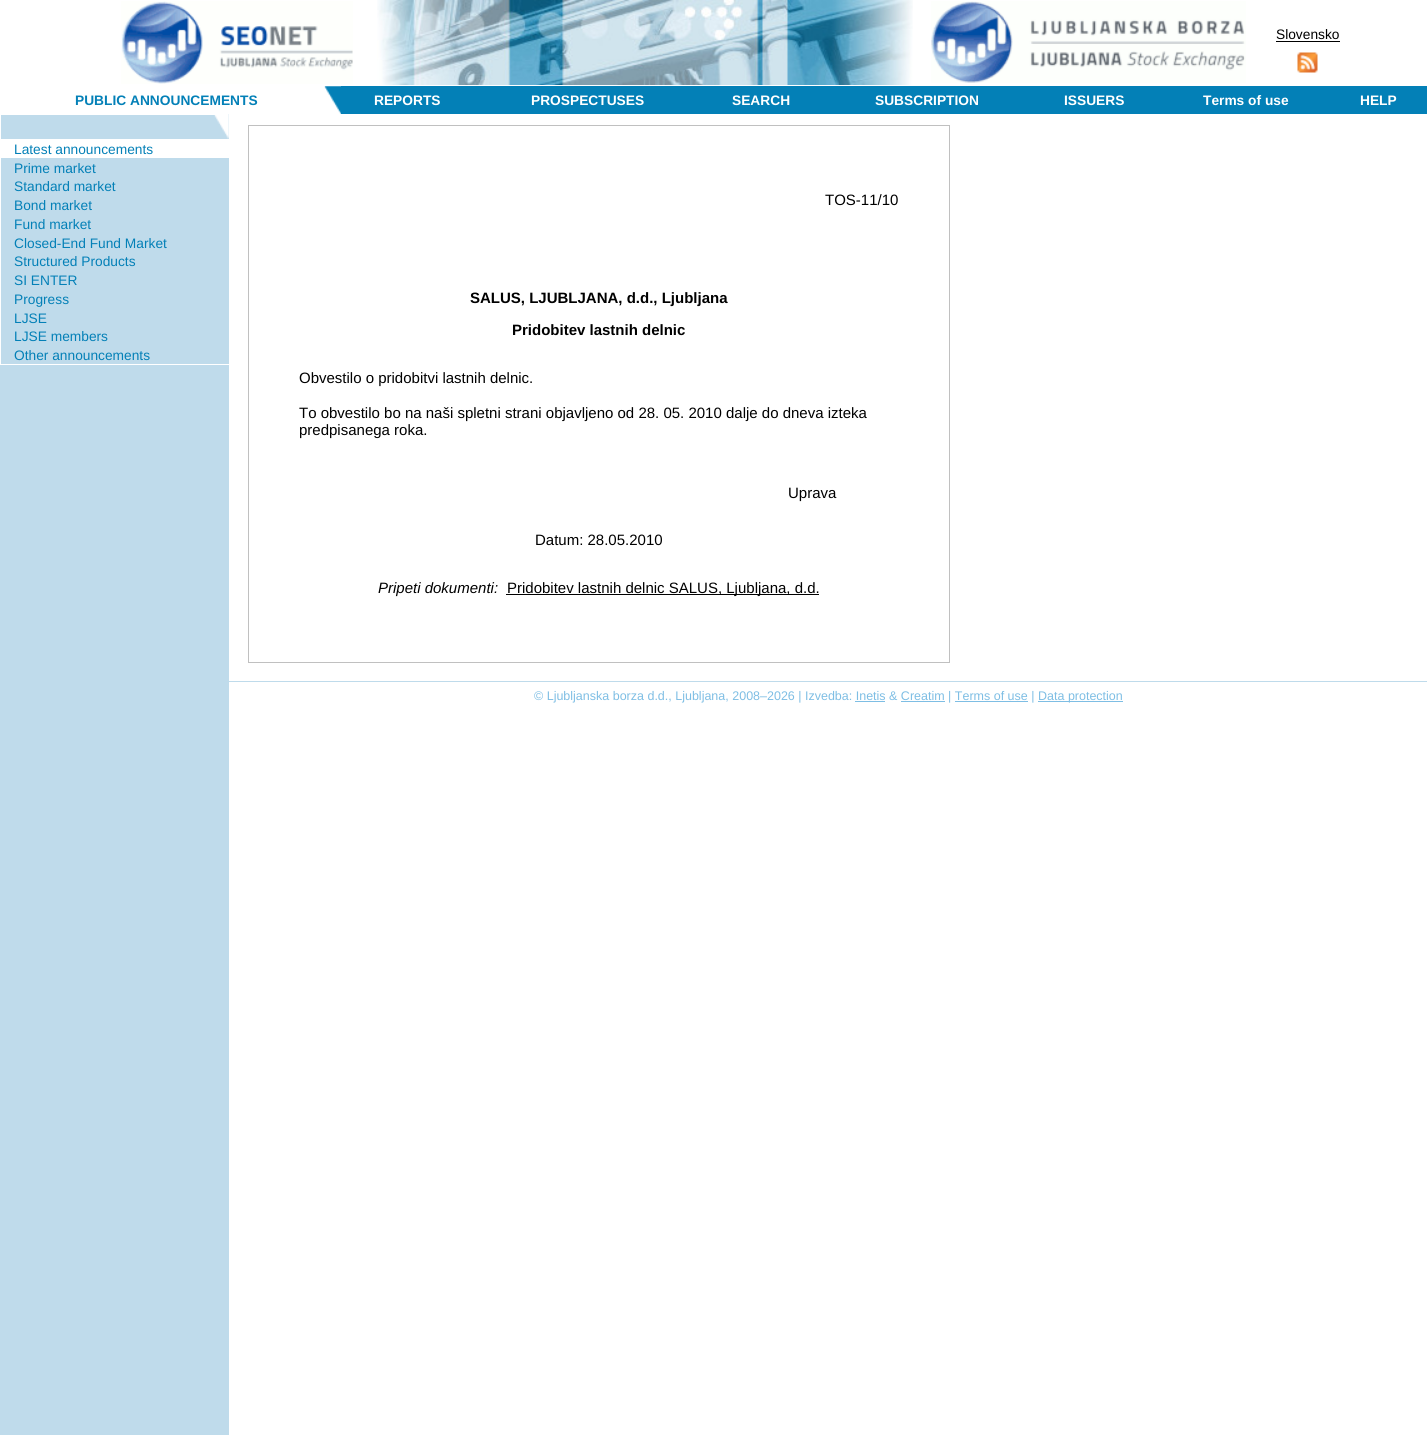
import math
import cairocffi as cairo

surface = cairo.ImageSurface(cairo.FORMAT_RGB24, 1427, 1435)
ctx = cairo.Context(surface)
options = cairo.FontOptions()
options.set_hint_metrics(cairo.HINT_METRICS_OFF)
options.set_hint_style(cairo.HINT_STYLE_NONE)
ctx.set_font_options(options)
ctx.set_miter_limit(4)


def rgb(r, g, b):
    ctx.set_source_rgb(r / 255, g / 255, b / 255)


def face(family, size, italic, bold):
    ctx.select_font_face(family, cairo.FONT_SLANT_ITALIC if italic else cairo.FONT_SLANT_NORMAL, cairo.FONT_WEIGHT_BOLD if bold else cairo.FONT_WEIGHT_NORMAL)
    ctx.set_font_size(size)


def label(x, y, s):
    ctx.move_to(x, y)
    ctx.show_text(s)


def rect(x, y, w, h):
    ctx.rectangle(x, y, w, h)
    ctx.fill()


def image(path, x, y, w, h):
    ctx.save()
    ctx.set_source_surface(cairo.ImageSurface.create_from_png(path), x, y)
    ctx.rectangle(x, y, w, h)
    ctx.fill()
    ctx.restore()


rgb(255, 255, 255)
ctx.paint()
image('image0.png', 121, 1, 232, 83)
image('image1.png', 377, 0, 536, 85)
image('image2.png', 931, 1, 315, 82)
face('Liberation Sans', 13.75, 0, 0)
rgb(0, 0, 0)
label(1276, 39, 'Slovensko')
rect(1276, 41, 64, 1)
image('image3.png', 1297, 52, 21, 21)
rgb(191, 219, 235)
rect(0, 114, 229, 1321)
image('image4.png', 324, 86, 17, 28)
face('Liberation Sans', 13.75, 0, 1)
rgb(3, 128, 183)
label(75, 105, 'PUBLIC ANNOUNCEMENTS')
rect(341, 86, 1086, 28)
rgb(255, 255, 255)
label(374, 105, 'REPORTS')
label(531, 105, 'PROSPECTUSES')
label(732, 105, 'SEARCH')
label(875, 105, 'SUBSCRIPTION')
label(1064, 105, 'ISSUERS')
label(1203, 105, 'Terms of use')
label(1360, 105, 'HELP')
image('image5.png', 0, 114, 229, 1)
rect(0, 115, 1, 24)
image('image6.png', 214, 115, 15, 24)
rect(0, 364, 229, 1)
rect(0, 139, 1, 226)
rect(1, 139, 228, 19)
face('Liberation Sans', 13.75, 0, 0)
rgb(3, 128, 183)
label(14, 154, 'Latest announcements')
label(14, 173, 'Prime market')
label(14, 191, 'Standard market')
label(14, 210, 'Bond market')
label(14, 229, 'Fund market')
label(14, 248, 'Closed-End Fund Market')
label(14, 266, 'Structured Products')
label(14, 285, 'SI ENTER')
label(14, 304, 'Progress')
label(14, 323, 'LJSE')
label(14, 341, 'LJSE members')
label(14, 360, 'Other announcements')
ctx.rectangle(248.5, 125.5, 701, 537)
rgb(192, 192, 192)
ctx.set_line_width(1)
ctx.stroke()
face('Liberation Sans', 15, 0, 0)
rgb(0, 0, 0)
label(825, 205, 'TOS-11/10')
face('Liberation Sans', 15, 0, 1)
label(470, 303, 'SALUS, LJUBLJANA, d.d., Ljubljana')
label(512, 335, 'Pridobitev lastnih delnic')
face('Liberation Sans', 15, 0, 0)
label(299, 383, 'Obvestilo o pridobitvi lastnih delnic.')
label(299, 418, 'To obvestilo bo na naši spletni strani objavljeno od 28. 05. 2010 dalje do dneva izteka')
label(299, 435, 'predpisanega roka.')
label(788, 498, 'Uprava')
label(535, 545, 'Datum: 28.05.2010')
face('Liberation Sans', 15, 1, 0)
label(378, 593, 'Pripeti dokumenti:')
rect(506, 594, 313, 1)
face('Liberation Sans', 15, 0, 0)
label(507, 593, 'Pridobitev lastnih delnic SALUS, Ljubljana, d.d.')
rgb(191, 219, 235)
rect(229, 681, 1198, 1)
face('Liberation Sans', 12.5, 0, 0)
rgb(126, 190, 228)
label(534, 700, '© Ljubljanska borza d.d., Ljubljana, 2008–2026 | Izvedba: Inetis & Creatim | Terms of use |')
rect(1038, 701, 85, 1)
label(1038, 700, 'Data protection')
rect(855, 701, 30, 1)
rect(901, 701, 44, 1)
rect(955, 701, 73, 1)
surface.write_to_png('render.png')
